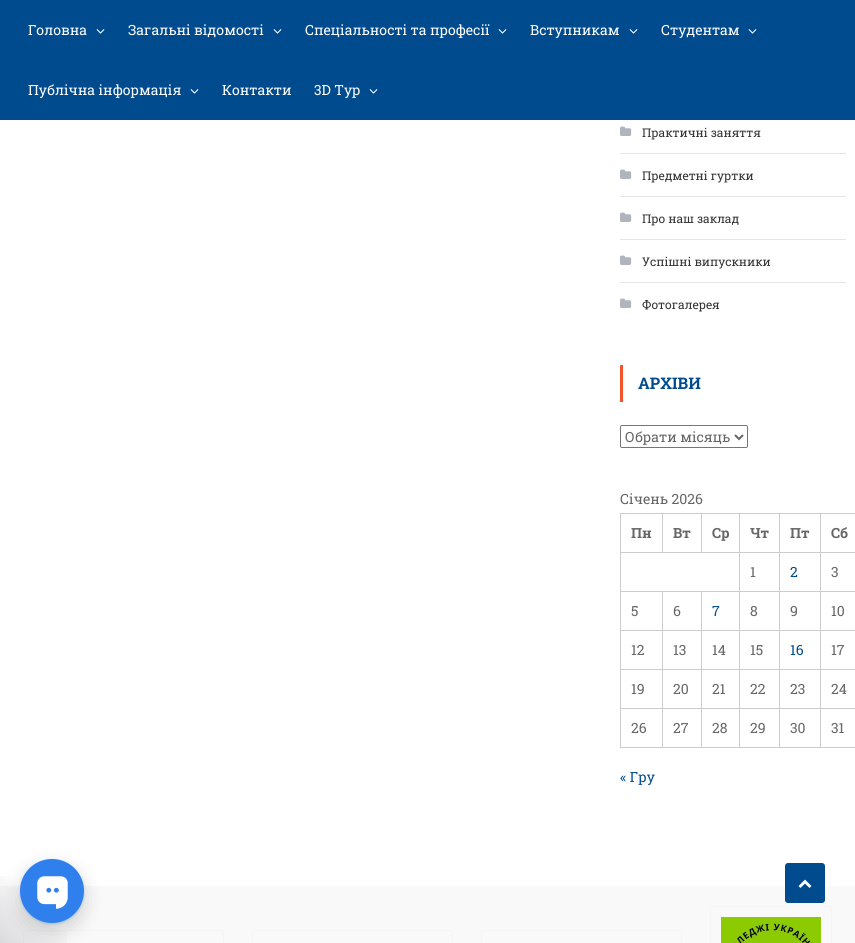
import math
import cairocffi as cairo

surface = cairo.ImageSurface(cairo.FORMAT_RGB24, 855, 943)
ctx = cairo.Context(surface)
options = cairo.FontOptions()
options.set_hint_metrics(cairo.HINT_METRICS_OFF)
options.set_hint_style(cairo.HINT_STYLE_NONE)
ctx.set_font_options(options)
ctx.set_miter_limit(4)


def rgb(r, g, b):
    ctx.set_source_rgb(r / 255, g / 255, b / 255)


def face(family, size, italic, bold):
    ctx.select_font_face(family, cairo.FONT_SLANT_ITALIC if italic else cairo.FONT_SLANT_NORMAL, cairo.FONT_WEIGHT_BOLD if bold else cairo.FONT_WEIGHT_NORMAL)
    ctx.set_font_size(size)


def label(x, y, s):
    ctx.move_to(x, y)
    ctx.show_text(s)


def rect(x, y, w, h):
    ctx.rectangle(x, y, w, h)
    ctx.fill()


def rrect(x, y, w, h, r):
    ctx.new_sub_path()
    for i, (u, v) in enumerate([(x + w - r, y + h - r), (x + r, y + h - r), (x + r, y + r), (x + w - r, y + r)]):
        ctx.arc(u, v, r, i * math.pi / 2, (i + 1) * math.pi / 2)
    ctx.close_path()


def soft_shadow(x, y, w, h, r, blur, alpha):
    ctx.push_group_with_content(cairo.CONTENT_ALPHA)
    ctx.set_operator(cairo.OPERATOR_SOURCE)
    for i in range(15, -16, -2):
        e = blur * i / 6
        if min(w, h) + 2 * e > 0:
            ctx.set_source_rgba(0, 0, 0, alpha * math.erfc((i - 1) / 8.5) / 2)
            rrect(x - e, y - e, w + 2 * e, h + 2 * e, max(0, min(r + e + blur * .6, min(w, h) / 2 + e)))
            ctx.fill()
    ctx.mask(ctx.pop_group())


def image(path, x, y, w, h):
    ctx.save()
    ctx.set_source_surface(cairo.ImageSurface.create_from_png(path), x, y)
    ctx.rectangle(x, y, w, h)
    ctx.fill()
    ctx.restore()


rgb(255, 255, 255)
ctx.paint()
rgb(0, 75, 142)
rect(0, 0, 855, 120)
face('Roboto Slab', 14, 0, 0)
rgb(255, 255, 255)
label(28, 35, 'Головна')
image('image0.png', 96, 29, 9, 5)
label(128, 35, 'Загальні відомості')
image('image0.png', 273, 29, 9, 5)
label(305, 35, 'Спеціальності та професії')
image('image0.png', 498, 29, 9, 5)
label(530, 35, 'Вступникам')
image('image0.png', 629, 29, 9, 5)
label(661, 35, 'Студентам')
image('image0.png', 748, 29, 9, 5)
label(28, 95, 'Публічна інформація')
image('image0.png', 190, 89, 9, 5)
label(222, 95, 'Контакти')
label(314, 95, '3D Тур')
image('image0.png', 369, 89, 9, 5)
rgb(230, 230, 230)
rect(620, 153, 226, 1)
image('image1.png', 620, 126, 12, 10)
face('Roboto Slab', 12, 0, 0)
rgb(51, 51, 51)
label(642, 137, 'Практичні заняття')
rgb(230, 230, 230)
rect(620, 196, 226, 1)
image('image1.png', 620, 169, 12, 10)
rgb(51, 51, 51)
label(642, 180, 'Предметні гуртки')
rgb(230, 230, 230)
rect(620, 239, 226, 1)
image('image1.png', 620, 212, 12, 10)
rgb(51, 51, 51)
label(642, 223, 'Про наш заклад')
rgb(230, 230, 230)
rect(620, 282, 226, 1)
image('image1.png', 620, 255, 12, 10)
rgb(51, 51, 51)
label(642, 266, 'Успішні випускники')
image('image1.png', 620, 298, 12, 10)
label(642, 309, 'Фотогалерея')
rgb(242, 85, 44)
rect(620, 365, 3, 37)
face('Roboto Slab', 16, 0, 1)
rgb(0, 75, 142)
label(638, 389, 'АРХІВИ')
rrect(620.5, 425.5, 127, 22, 1.5)
rgb(118, 118, 118)
ctx.set_line_width(1)
ctx.stroke()
ctx.new_path()
ctx.move_to(735, 435)
ctx.line_to(739, 439)
ctx.line_to(743, 435)
rgb(102, 102, 102)
ctx.set_line_width(2)
ctx.stroke()
face('Roboto Slab', 14, 0, 0)
label(625, 442, 'Обрати місяць')
label(620, 504, 'Січень 2026')
rgb(204, 204, 204)
rect(820, 513, 35, 1)
rect(820, 552, 35, 1)
rect(820, 591, 35, 1)
rect(820, 630, 35, 1)
rect(820, 669, 35, 1)
rect(820, 708, 35, 1)
rect(820, 747, 35, 1)
rect(820, 708, 1, 40)
rect(779, 708, 42, 1)
rect(820, 669, 1, 40)
rect(779, 669, 42, 1)
rect(820, 630, 1, 40)
rect(779, 630, 42, 1)
rect(820, 591, 1, 40)
rect(779, 591, 42, 1)
rect(820, 552, 1, 40)
rect(779, 552, 42, 1)
rect(820, 513, 1, 40)
rect(779, 513, 42, 1)
rect(779, 747, 42, 1)
rect(779, 708, 1, 40)
rect(739, 708, 41, 1)
rect(779, 669, 1, 40)
rect(739, 669, 41, 1)
rect(779, 630, 1, 40)
rect(739, 630, 41, 1)
rect(779, 591, 1, 40)
rect(739, 591, 41, 1)
rect(779, 552, 1, 40)
rect(739, 552, 41, 1)
rect(779, 513, 1, 40)
rect(739, 513, 41, 1)
rect(739, 747, 41, 1)
rect(739, 708, 1, 40)
rect(701, 708, 39, 1)
rect(739, 669, 1, 40)
rect(701, 669, 39, 1)
rect(739, 630, 1, 40)
rect(701, 630, 39, 1)
rect(739, 591, 1, 40)
rect(701, 591, 39, 1)
rect(739, 552, 1, 40)
rect(620, 552, 120, 1)
rect(739, 513, 1, 40)
rect(701, 513, 39, 1)
rect(701, 513, 1, 40)
rect(662, 513, 40, 1)
rect(662, 513, 1, 40)
rect(620, 513, 43, 1)
rect(701, 747, 39, 1)
rect(701, 708, 1, 40)
rect(662, 708, 40, 1)
rect(701, 669, 1, 40)
rect(662, 669, 40, 1)
rect(701, 630, 1, 40)
rect(662, 630, 40, 1)
rect(701, 591, 1, 40)
rect(662, 591, 40, 1)
rect(662, 747, 40, 1)
rect(662, 708, 1, 40)
rect(620, 708, 43, 1)
rect(662, 669, 1, 40)
rect(620, 669, 43, 1)
rect(662, 630, 1, 40)
rect(620, 630, 43, 1)
rect(662, 591, 1, 40)
rect(620, 591, 43, 1)
rect(620, 747, 43, 1)
rect(620, 708, 1, 40)
rect(620, 669, 1, 40)
rect(620, 630, 1, 40)
rect(620, 591, 1, 40)
rect(620, 552, 1, 40)
rect(620, 513, 1, 40)
face('Roboto Slab', 14, 0, 1)
rgb(102, 102, 102)
label(631, 538, 'Пн')
label(673, 538, 'Вт')
label(712, 538, 'Ср')
label(750, 538, 'Чт')
label(790, 538, 'Пт')
label(831, 538, 'Сб')
face('Roboto Slab', 14, 0, 0)
label(750, 577, '1')
rgb(0, 75, 142)
label(790, 577, '2')
rgb(102, 102, 102)
label(831, 577, '3')
label(631, 616, '5')
label(673, 616, '6')
rgb(0, 75, 142)
label(712, 616, '7')
rgb(102, 102, 102)
label(750, 616, '8')
label(790, 616, '9')
label(831, 616, '10')
label(631, 655, '12')
label(673, 655, '13')
label(712, 655, '14')
label(750, 655, '15')
rgb(0, 75, 142)
label(790, 655, '16')
rgb(102, 102, 102)
label(831, 655, '17')
label(631, 694, '19')
label(673, 694, '20')
label(712, 694, '21')
label(750, 694, '22')
label(790, 694, '23')
label(831, 694, '24')
label(631, 733, '26')
label(673, 733, '27')
label(712, 733, '28')
label(750, 733, '29')
label(790, 733, '30')
label(831, 733, '31')
rgb(0, 75, 142)
label(620, 782, '« Гру')
rgb(249, 249, 249)
rect(0, 886, 855, 57)
rgb(0, 75, 142)
rrect(785, 863, 40, 40, 3)
ctx.fill()
image('image2.png', 798, 879, 14, 9)
rrect(23.5, 930.5, 200, 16, 2.5)
rgb(244, 245, 247)
ctx.set_line_width(1)
ctx.stroke()
rrect(252.5, 930.5, 200, 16, 2.5)
ctx.stroke()
rrect(481.5, 930.5, 200, 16, 2.5)
ctx.stroke()
rrect(710.5, 906.5, 121, 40, 2.5)
ctx.stroke()
image('image3.png', 721, 917, 100, 26)
gradient = cairo.LinearGradient(100, 843, -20, 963)
gradient.add_color_stop_rgba(0.5, 0.055, 0.055, 0.161, 0)
gradient.add_color_stop_rgba(1, 0.055, 0.055, 0.161, 0.2)
ctx.set_source(gradient)
rect(0, 876, 67, 67)
rgb(0, 0, 0)
soft_shadow(20, 867, 64, 64, 32, 10, 0.16)
rgb(47, 128, 237)
soft_shadow(22, 862, 60, 60, 30, 2, 1)
rgb(47, 128, 237)
ctx.arc(52, 891, 32, 0, 2 * math.pi)
ctx.fill()
image('image4.png', 37, 876, 31, 33)
surface.write_to_png('render.png')
